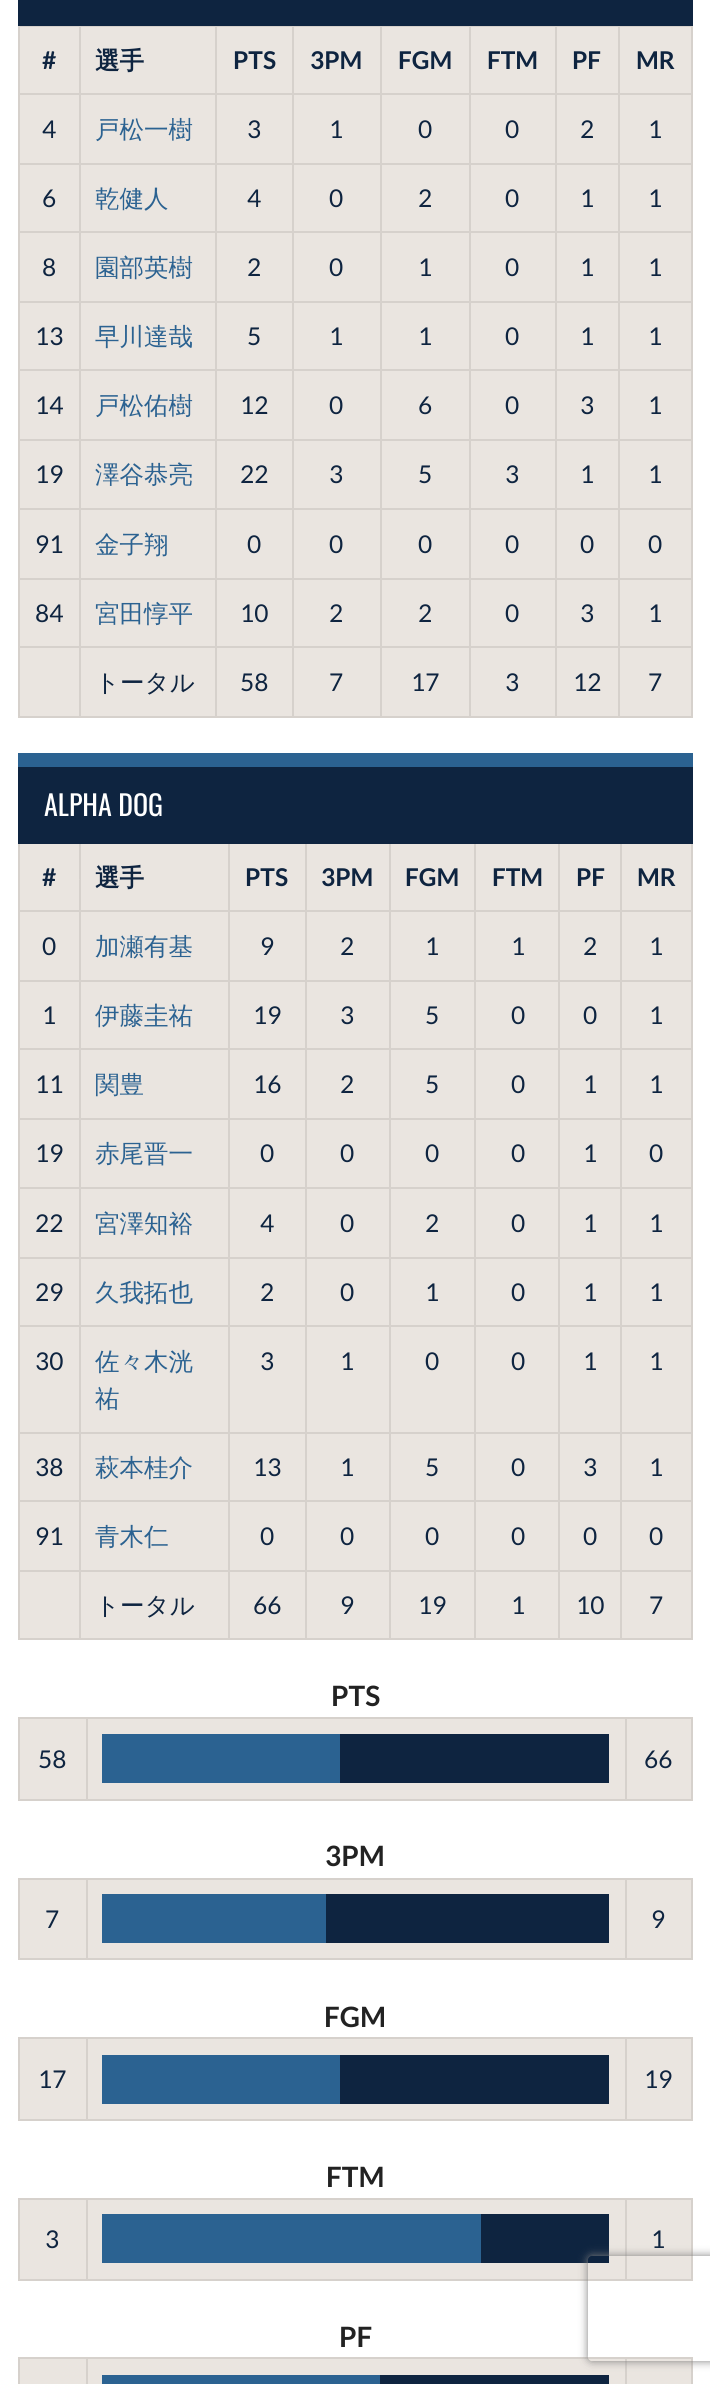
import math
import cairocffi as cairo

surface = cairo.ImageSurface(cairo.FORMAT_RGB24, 710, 2384)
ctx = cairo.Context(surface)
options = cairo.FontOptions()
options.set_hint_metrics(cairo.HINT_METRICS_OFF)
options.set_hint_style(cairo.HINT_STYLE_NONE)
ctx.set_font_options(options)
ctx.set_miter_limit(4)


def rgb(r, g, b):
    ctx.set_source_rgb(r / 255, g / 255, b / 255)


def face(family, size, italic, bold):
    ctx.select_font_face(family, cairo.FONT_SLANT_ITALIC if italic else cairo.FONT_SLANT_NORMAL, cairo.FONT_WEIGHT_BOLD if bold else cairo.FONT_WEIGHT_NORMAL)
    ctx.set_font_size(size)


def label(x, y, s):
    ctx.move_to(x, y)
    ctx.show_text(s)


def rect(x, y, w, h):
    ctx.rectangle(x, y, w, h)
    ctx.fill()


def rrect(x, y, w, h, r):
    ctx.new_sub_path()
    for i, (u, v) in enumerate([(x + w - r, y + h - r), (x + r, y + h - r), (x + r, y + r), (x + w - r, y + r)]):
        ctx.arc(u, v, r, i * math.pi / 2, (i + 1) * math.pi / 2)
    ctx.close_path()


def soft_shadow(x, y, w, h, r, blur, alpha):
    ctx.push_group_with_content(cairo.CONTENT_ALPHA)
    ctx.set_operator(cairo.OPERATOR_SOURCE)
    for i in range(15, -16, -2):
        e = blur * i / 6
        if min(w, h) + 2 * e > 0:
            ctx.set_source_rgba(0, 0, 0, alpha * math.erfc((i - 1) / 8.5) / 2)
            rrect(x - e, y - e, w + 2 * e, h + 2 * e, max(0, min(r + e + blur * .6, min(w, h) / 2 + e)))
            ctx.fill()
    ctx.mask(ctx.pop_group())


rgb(255, 255, 255)
ctx.paint()
rgb(214, 209, 204)
rect(18, 26, 675, 1)
rect(691, 25, 2, 693)
rect(18, 716, 675, 2)
rect(18, 25, 2, 693)
rgb(234, 229, 224)
rect(20, 27, 671, 689)
rgb(214, 209, 204)
rect(618, 93, 75, 2)
rect(618, 163, 75, 2)
rect(618, 231, 75, 2)
rect(618, 301, 75, 2)
rect(618, 369, 75, 2)
rect(618, 439, 75, 2)
rect(618, 508, 75, 2)
rect(618, 578, 75, 2)
rect(618, 646, 75, 2)
rect(618, 646, 2, 72)
rect(555, 646, 65, 2)
rect(618, 578, 2, 70)
rect(555, 578, 65, 2)
rect(618, 508, 2, 71)
rect(555, 508, 65, 2)
rect(618, 439, 2, 70)
rect(555, 439, 65, 2)
rect(618, 369, 2, 72)
rect(555, 369, 65, 2)
rect(618, 301, 2, 70)
rect(555, 301, 65, 2)
rect(618, 231, 2, 72)
rect(555, 231, 65, 2)
rect(618, 163, 2, 70)
rect(555, 163, 65, 2)
rect(618, 93, 2, 72)
rect(555, 93, 65, 2)
rect(555, 646, 2, 72)
rect(469, 646, 88, 2)
rect(555, 578, 2, 70)
rect(469, 578, 88, 2)
rect(555, 508, 2, 71)
rect(469, 508, 88, 2)
rect(555, 439, 2, 70)
rect(469, 439, 88, 2)
rect(555, 369, 2, 72)
rect(469, 369, 88, 2)
rect(555, 301, 2, 70)
rect(469, 301, 88, 2)
rect(555, 231, 2, 72)
rect(469, 231, 88, 2)
rect(555, 163, 2, 70)
rect(469, 163, 88, 2)
rect(555, 93, 2, 72)
rect(469, 93, 88, 2)
rect(469, 646, 2, 72)
rect(380, 646, 91, 2)
rect(469, 578, 2, 70)
rect(380, 578, 91, 2)
rect(469, 508, 2, 71)
rect(380, 508, 91, 2)
rect(469, 439, 2, 70)
rect(380, 439, 91, 2)
rect(469, 369, 2, 72)
rect(380, 369, 91, 2)
rect(469, 301, 2, 70)
rect(380, 301, 91, 2)
rect(469, 231, 2, 72)
rect(380, 231, 91, 2)
rect(469, 163, 2, 70)
rect(380, 163, 91, 2)
rect(469, 93, 2, 72)
rect(380, 93, 91, 2)
rect(380, 646, 2, 72)
rect(292, 646, 90, 2)
rect(380, 578, 2, 70)
rect(292, 578, 90, 2)
rect(380, 508, 2, 71)
rect(292, 508, 90, 2)
rect(380, 439, 2, 70)
rect(292, 439, 90, 2)
rect(380, 369, 2, 72)
rect(292, 369, 90, 2)
rect(380, 301, 2, 70)
rect(292, 301, 90, 2)
rect(380, 231, 2, 72)
rect(292, 231, 90, 2)
rect(380, 163, 2, 70)
rect(292, 163, 90, 2)
rect(380, 93, 2, 72)
rect(292, 93, 90, 2)
rect(292, 646, 2, 72)
rect(215, 646, 79, 2)
rect(292, 578, 2, 70)
rect(215, 578, 79, 2)
rect(292, 508, 2, 71)
rect(215, 508, 79, 2)
rect(292, 439, 2, 70)
rect(215, 439, 79, 2)
rect(292, 369, 2, 72)
rect(215, 369, 79, 2)
rect(292, 301, 2, 70)
rect(215, 301, 79, 2)
rect(292, 231, 2, 72)
rect(215, 231, 79, 2)
rect(292, 163, 2, 70)
rect(215, 163, 79, 2)
rect(292, 93, 2, 72)
rect(215, 93, 79, 2)
rect(215, 646, 2, 72)
rect(79, 646, 138, 2)
rect(215, 578, 2, 70)
rect(79, 578, 138, 2)
rect(215, 508, 2, 71)
rect(79, 508, 138, 2)
rect(215, 439, 2, 70)
rect(79, 439, 138, 2)
rect(215, 369, 2, 72)
rect(79, 369, 138, 2)
rect(215, 301, 2, 70)
rect(79, 301, 138, 2)
rect(215, 231, 2, 72)
rect(79, 231, 138, 2)
rect(215, 163, 2, 70)
rect(79, 163, 138, 2)
rect(215, 93, 2, 72)
rect(79, 93, 138, 2)
rect(79, 646, 2, 72)
rect(18, 646, 63, 2)
rect(79, 578, 2, 70)
rect(18, 578, 63, 2)
rect(79, 508, 2, 71)
rect(18, 508, 63, 2)
rect(79, 439, 2, 70)
rect(18, 439, 63, 2)
rect(79, 369, 2, 72)
rect(18, 369, 63, 2)
rect(79, 301, 2, 70)
rect(18, 301, 63, 2)
rect(79, 231, 2, 72)
rect(18, 231, 63, 2)
rect(79, 163, 2, 70)
rect(18, 163, 63, 2)
rect(79, 93, 2, 72)
rect(18, 93, 63, 2)
rect(79, 25, 2, 70)
rect(215, 25, 2, 70)
rect(292, 25, 2, 70)
rect(380, 25, 2, 70)
rect(469, 25, 2, 70)
rect(555, 25, 2, 70)
rect(618, 25, 2, 70)
rgb(14, 36, 64)
rect(18, 0, 675, 26)
face('Lato', 24.5, 0, 1)
label(42, 69, '#')
rgb(234, 229, 224)
ctx.new_path()
ctx.move_to(69.5, 54)
ctx.line_to(57, 54)
ctx.line_to(63.5, 62.5)
ctx.close_path()
ctx.move_to(67, 62.5)
ctx.line_to(79.5, 62.5)
ctx.line_to(73, 54)
ctx.close_path()
ctx.fill()
face('WenQuanYi Zen Hei', 24.5, 0, 1)
rgb(14, 36, 64)
label(95, 69, '選手')
face('Lato', 24.5, 0, 1)
label(233, 69, 'PTS')
label(310, 69, '3PM')
label(398, 69, 'FGM')
label(487, 69, 'FTM')
label(572, 69, 'PF')
label(636, 69, 'MR')
face('Lato', 24.5, 0, 0)
label(42, 138, '4')
face('WenQuanYi Zen Hei Medium', 24.5, 0, 0)
rgb(43, 98, 145)
label(95, 138, '戸松一樹')
face('Lato', 24.5, 0, 0)
rgb(14, 36, 64)
label(247, 138, '3')
label(329, 138, '1')
label(418, 138, '0')
label(505, 138, '0')
label(580, 138, '2')
label(648, 138, '1')
label(42, 207, '6')
face('WenQuanYi Zen Hei Medium', 24.5, 0, 0)
rgb(43, 98, 145)
label(95, 207, '乾健人')
face('Lato', 24.5, 0, 0)
rgb(14, 36, 64)
label(247, 207, '4')
label(329, 207, '0')
label(418, 207, '2')
label(505, 207, '0')
label(580, 207, '1')
label(648, 207, '1')
label(42, 276, '8')
face('WenQuanYi Zen Hei Medium', 24.5, 0, 0)
rgb(43, 98, 145)
label(95, 276, '園部英樹')
face('Lato', 24.5, 0, 0)
rgb(14, 36, 64)
label(247, 276, '2')
label(329, 276, '0')
label(418, 276, '1')
label(505, 276, '0')
label(580, 276, '1')
label(648, 276, '1')
label(35, 345, '13')
face('WenQuanYi Zen Hei Medium', 24.5, 0, 0)
rgb(43, 98, 145)
label(95, 345, '早川達哉')
face('Lato', 24.5, 0, 0)
rgb(14, 36, 64)
label(247, 345, '5')
label(329, 345, '1')
label(418, 345, '1')
label(505, 345, '0')
label(580, 345, '1')
label(648, 345, '1')
label(35, 414, '14')
face('WenQuanYi Zen Hei Medium', 24.5, 0, 0)
rgb(43, 98, 145)
label(95, 414, '戸松佑樹')
face('Lato', 24.5, 0, 0)
rgb(14, 36, 64)
label(240, 414, '12')
label(329, 414, '0')
label(418, 414, '6')
label(505, 414, '0')
label(580, 414, '3')
label(648, 414, '1')
label(35, 483, '19')
face('WenQuanYi Zen Hei Medium', 24.5, 0, 0)
rgb(43, 98, 145)
label(95, 483, '澤谷恭亮')
face('Lato', 24.5, 0, 0)
rgb(14, 36, 64)
label(240, 483, '22')
label(329, 483, '3')
label(418, 483, '5')
label(505, 483, '3')
label(580, 483, '1')
label(648, 483, '1')
label(35, 553, '91')
face('WenQuanYi Zen Hei Medium', 24.5, 0, 0)
rgb(43, 98, 145)
label(95, 553, '金子翔')
face('Lato', 24.5, 0, 0)
rgb(14, 36, 64)
label(247, 553, '0')
label(329, 553, '0')
label(418, 553, '0')
label(505, 553, '0')
label(580, 553, '0')
label(648, 553, '0')
label(35, 622, '84')
face('WenQuanYi Zen Hei Medium', 24.5, 0, 0)
rgb(43, 98, 145)
label(95, 622, '宮田惇平')
face('Lato', 24.5, 0, 0)
rgb(14, 36, 64)
label(240, 622, '10')
label(329, 622, '2')
label(418, 622, '2')
label(505, 622, '0')
label(580, 622, '3')
label(648, 622, '1')
face('WenQuanYi Zen Hei Medium', 24.5, 0, 0)
label(95, 691, 'トータル')
face('Lato', 24.5, 0, 0)
label(240, 691, '58')
label(329, 691, '7')
label(411, 691, '17')
label(505, 691, '3')
label(573, 691, '12')
label(648, 691, '7')
rgb(214, 209, 204)
rect(691, 842, 2, 798)
rect(18, 1638, 675, 2)
rect(18, 842, 2, 798)
rgb(234, 229, 224)
rect(20, 844, 671, 794)
rgb(214, 209, 204)
rect(620, 910, 73, 2)
rect(620, 980, 73, 2)
rect(620, 1048, 73, 2)
rect(620, 1118, 73, 2)
rect(620, 1187, 73, 2)
rect(620, 1257, 73, 2)
rect(620, 1325, 73, 2)
rect(620, 1432, 73, 2)
rect(620, 1500, 73, 2)
rect(620, 1570, 73, 2)
rect(620, 1570, 2, 70)
rect(558, 1570, 63, 2)
rect(620, 1500, 2, 72)
rect(558, 1500, 63, 2)
rect(620, 1432, 2, 70)
rect(558, 1432, 63, 2)
rect(620, 1325, 2, 108)
rect(558, 1325, 63, 2)
rect(620, 1257, 2, 70)
rect(558, 1257, 63, 2)
rect(620, 1187, 2, 71)
rect(558, 1187, 63, 2)
rect(620, 1118, 2, 70)
rect(558, 1118, 63, 2)
rect(620, 1048, 2, 72)
rect(558, 1048, 63, 2)
rect(620, 980, 2, 70)
rect(558, 980, 63, 2)
rect(620, 910, 2, 72)
rect(558, 910, 63, 2)
rect(558, 1570, 2, 70)
rect(474, 1570, 86, 2)
rect(558, 1500, 2, 72)
rect(474, 1500, 86, 2)
rect(558, 1432, 2, 70)
rect(474, 1432, 86, 2)
rect(558, 1325, 2, 108)
rect(474, 1325, 86, 2)
rect(558, 1257, 2, 70)
rect(474, 1257, 86, 2)
rect(558, 1187, 2, 71)
rect(474, 1187, 86, 2)
rect(558, 1118, 2, 70)
rect(474, 1118, 86, 2)
rect(558, 1048, 2, 72)
rect(474, 1048, 86, 2)
rect(558, 980, 2, 70)
rect(474, 980, 86, 2)
rect(558, 910, 2, 72)
rect(474, 910, 86, 2)
rect(474, 1570, 2, 70)
rect(389, 1570, 87, 2)
rect(474, 1500, 2, 72)
rect(389, 1500, 87, 2)
rect(474, 1432, 2, 70)
rect(389, 1432, 87, 2)
rect(474, 1325, 2, 108)
rect(389, 1325, 87, 2)
rect(474, 1257, 2, 70)
rect(389, 1257, 87, 2)
rect(474, 1187, 2, 71)
rect(389, 1187, 87, 2)
rect(474, 1118, 2, 70)
rect(389, 1118, 87, 2)
rect(474, 1048, 2, 72)
rect(389, 1048, 87, 2)
rect(474, 980, 2, 70)
rect(389, 980, 87, 2)
rect(474, 910, 2, 72)
rect(389, 910, 87, 2)
rect(389, 1570, 2, 70)
rect(305, 1570, 85, 2)
rect(389, 1500, 2, 72)
rect(305, 1500, 85, 2)
rect(389, 1432, 2, 70)
rect(305, 1432, 85, 2)
rect(389, 1325, 2, 108)
rect(305, 1325, 85, 2)
rect(389, 1257, 2, 70)
rect(305, 1257, 85, 2)
rect(389, 1187, 2, 71)
rect(305, 1187, 85, 2)
rect(389, 1118, 2, 70)
rect(305, 1118, 85, 2)
rect(389, 1048, 2, 72)
rect(305, 1048, 85, 2)
rect(389, 980, 2, 70)
rect(305, 980, 85, 2)
rect(389, 910, 2, 72)
rect(305, 910, 85, 2)
rect(305, 1570, 2, 70)
rect(228, 1570, 78, 2)
rect(305, 1500, 2, 72)
rect(228, 1500, 78, 2)
rect(305, 1432, 2, 70)
rect(228, 1432, 78, 2)
rect(305, 1325, 2, 108)
rect(228, 1325, 78, 2)
rect(305, 1257, 2, 70)
rect(228, 1257, 78, 2)
rect(305, 1187, 2, 71)
rect(228, 1187, 78, 2)
rect(305, 1118, 2, 70)
rect(228, 1118, 78, 2)
rect(305, 1048, 2, 72)
rect(228, 1048, 78, 2)
rect(305, 980, 2, 70)
rect(228, 980, 78, 2)
rect(305, 910, 2, 72)
rect(228, 910, 78, 2)
rect(228, 1570, 2, 70)
rect(79, 1570, 150, 2)
rect(228, 1500, 2, 72)
rect(79, 1500, 150, 2)
rect(228, 1432, 2, 70)
rect(79, 1432, 150, 2)
rect(228, 1325, 2, 108)
rect(79, 1325, 150, 2)
rect(228, 1257, 2, 70)
rect(79, 1257, 150, 2)
rect(228, 1187, 2, 71)
rect(79, 1187, 150, 2)
rect(228, 1118, 2, 70)
rect(79, 1118, 150, 2)
rect(228, 1048, 2, 72)
rect(79, 1048, 150, 2)
rect(228, 980, 2, 70)
rect(79, 980, 150, 2)
rect(228, 910, 2, 72)
rect(79, 910, 150, 2)
rect(79, 1570, 2, 70)
rect(18, 1570, 63, 2)
rect(79, 1500, 2, 72)
rect(18, 1500, 63, 2)
rect(79, 1432, 2, 70)
rect(18, 1432, 63, 2)
rect(79, 1325, 2, 108)
rect(18, 1325, 63, 2)
rect(79, 1257, 2, 70)
rect(18, 1257, 63, 2)
rect(79, 1187, 2, 71)
rect(18, 1187, 63, 2)
rect(79, 1118, 2, 70)
rect(18, 1118, 63, 2)
rect(79, 1048, 2, 72)
rect(18, 1048, 63, 2)
rect(79, 980, 2, 70)
rect(18, 980, 63, 2)
rect(79, 910, 2, 72)
rect(18, 910, 63, 2)
rect(79, 842, 2, 70)
rect(228, 842, 2, 70)
rect(305, 842, 2, 70)
rect(389, 842, 2, 70)
rect(474, 842, 2, 70)
rect(558, 842, 2, 70)
rect(620, 842, 2, 70)
rgb(14, 36, 64)
rect(18, 767, 675, 77)
rgb(43, 98, 145)
rect(18, 753, 675, 14)
face('Oswald', 28, 0, 0)
rgb(255, 255, 255)
label(44, 816, 'ALPHA DOG')
face('Lato', 24.5, 0, 1)
rgb(14, 36, 64)
label(42, 886, '#')
rgb(234, 229, 224)
ctx.new_path()
ctx.move_to(69.5, 871.5)
ctx.line_to(57, 871.5)
ctx.line_to(63.5, 880)
ctx.close_path()
ctx.move_to(67, 880)
ctx.line_to(79.5, 880)
ctx.line_to(73, 871.5)
ctx.close_path()
ctx.fill()
face('WenQuanYi Zen Hei', 24.5, 0, 1)
rgb(14, 36, 64)
label(95, 886, '選手')
face('Lato', 24.5, 0, 1)
label(245, 886, 'PTS')
label(321, 886, '3PM')
label(405, 886, 'FGM')
label(492, 886, 'FTM')
label(576, 886, 'PF')
label(637, 886, 'MR')
face('Lato', 24.5, 0, 0)
label(42, 955, '0')
face('WenQuanYi Zen Hei Medium', 24.5, 0, 0)
rgb(43, 98, 145)
label(95, 955, '加瀬有基')
face('Lato', 24.5, 0, 0)
rgb(14, 36, 64)
label(260, 955, '9')
label(340, 955, '2')
label(425, 955, '1')
label(511, 955, '1')
label(583, 955, '2')
label(649, 955, '1')
label(42, 1024, '1')
face('WenQuanYi Zen Hei Medium', 24.5, 0, 0)
rgb(43, 98, 145)
label(95, 1024, '伊藤圭祐')
face('Lato', 24.5, 0, 0)
rgb(14, 36, 64)
label(253, 1024, '19')
label(340, 1024, '3')
label(425, 1024, '5')
label(511, 1024, '0')
label(583, 1024, '0')
label(649, 1024, '1')
label(35, 1093, '11')
face('WenQuanYi Zen Hei Medium', 24.5, 0, 0)
rgb(43, 98, 145)
label(95, 1093, '関豊')
face('Lato', 24.5, 0, 0)
rgb(14, 36, 64)
label(253, 1093, '16')
label(340, 1093, '2')
label(425, 1093, '5')
label(511, 1093, '0')
label(583, 1093, '1')
label(649, 1093, '1')
label(35, 1162, '19')
face('WenQuanYi Zen Hei Medium', 24.5, 0, 0)
rgb(43, 98, 145)
label(95, 1162, '赤尾晋一')
face('Lato', 24.5, 0, 0)
rgb(14, 36, 64)
label(260, 1162, '0')
label(340, 1162, '0')
label(425, 1162, '0')
label(511, 1162, '0')
label(583, 1162, '1')
label(649, 1162, '0')
label(35, 1232, '22')
face('WenQuanYi Zen Hei Medium', 24.5, 0, 0)
rgb(43, 98, 145)
label(95, 1232, '宮澤知裕')
face('Lato', 24.5, 0, 0)
rgb(14, 36, 64)
label(260, 1232, '4')
label(340, 1232, '0')
label(425, 1232, '2')
label(511, 1232, '0')
label(583, 1232, '1')
label(649, 1232, '1')
label(35, 1301, '29')
face('WenQuanYi Zen Hei Medium', 24.5, 0, 0)
rgb(43, 98, 145)
label(95, 1301, '久我拓也')
face('Lato', 24.5, 0, 0)
rgb(14, 36, 64)
label(260, 1301, '2')
label(340, 1301, '0')
label(425, 1301, '1')
label(511, 1301, '0')
label(583, 1301, '1')
label(649, 1301, '1')
label(35, 1370, '30')
face('WenQuanYi Zen Hei Medium', 24.5, 0, 0)
rgb(43, 98, 145)
label(95, 1370, '佐々木洸')
label(95, 1407, '祐')
face('Lato', 24.5, 0, 0)
rgb(14, 36, 64)
label(260, 1370, '3')
label(340, 1370, '1')
label(425, 1370, '0')
label(511, 1370, '0')
label(583, 1370, '1')
label(649, 1370, '1')
label(35, 1476, '38')
face('WenQuanYi Zen Hei Medium', 24.5, 0, 0)
rgb(43, 98, 145)
label(95, 1476, '萩本桂介')
face('Lato', 24.5, 0, 0)
rgb(14, 36, 64)
label(253, 1476, '13')
label(340, 1476, '1')
label(425, 1476, '5')
label(511, 1476, '0')
label(583, 1476, '3')
label(649, 1476, '1')
label(35, 1545, '91')
face('WenQuanYi Zen Hei Medium', 24.5, 0, 0)
rgb(43, 98, 145)
label(95, 1545, '青木仁')
face('Lato', 24.5, 0, 0)
rgb(14, 36, 64)
label(260, 1545, '0')
label(340, 1545, '0')
label(425, 1545, '0')
label(511, 1545, '0')
label(583, 1545, '0')
label(649, 1545, '0')
face('WenQuanYi Zen Hei Medium', 24.5, 0, 0)
label(95, 1614, 'トータル')
face('Lato', 24.5, 0, 0)
label(253, 1614, '66')
label(340, 1614, '9')
label(418, 1614, '19')
label(511, 1614, '1')
label(576, 1614, '10')
label(649, 1614, '7')
face('Lato', 28, 0, 1)
rgb(34, 34, 34)
label(331, 1706, 'PTS')
rgb(234, 229, 224)
rect(20, 1719, 671, 80)
rgb(214, 209, 204)
rect(18, 1717, 675, 2)
rect(691, 1717, 2, 84)
rect(18, 1799, 675, 2)
rect(18, 1717, 2, 84)
face('Lato', 24.5, 0, 0)
rgb(14, 36, 64)
label(38, 1768, '58')
rgb(214, 209, 204)
rect(86, 1717, 2, 84)
rgb(14, 36, 64)
rect(340, 1734, 269, 49)
rgb(43, 98, 145)
rect(102, 1734, 238, 49)
rgb(214, 209, 204)
rect(625, 1717, 2, 84)
rgb(14, 36, 64)
label(644, 1768, '66')
face('Lato', 28, 0, 1)
rgb(34, 34, 34)
label(325, 1866, '3PM')
rgb(234, 229, 224)
rect(20, 1880, 671, 78)
rgb(214, 209, 204)
rect(18, 1878, 675, 2)
rect(691, 1878, 2, 82)
rect(18, 1958, 675, 2)
rect(18, 1878, 2, 82)
face('Lato', 24.5, 0, 0)
rgb(14, 36, 64)
label(45, 1928, '7')
rgb(214, 209, 204)
rect(86, 1878, 2, 82)
rgb(14, 36, 64)
rect(326, 1894, 283, 49)
rgb(43, 98, 145)
rect(102, 1894, 224, 49)
rgb(214, 209, 204)
rect(625, 1878, 2, 82)
rgb(14, 36, 64)
label(651, 1928, '9')
face('Lato', 28, 0, 1)
rgb(34, 34, 34)
label(324, 2027, 'FGM')
rgb(234, 229, 224)
rect(20, 2039, 671, 80)
rgb(214, 209, 204)
rect(18, 2037, 675, 2)
rect(691, 2037, 2, 84)
rect(18, 2119, 675, 2)
rect(18, 2037, 2, 84)
face('Lato', 24.5, 0, 0)
rgb(14, 36, 64)
label(38, 2088, '17')
rgb(214, 209, 204)
rect(86, 2037, 2, 84)
rgb(14, 36, 64)
rect(340, 2055, 269, 49)
rgb(43, 98, 145)
rect(102, 2055, 238, 49)
rgb(214, 209, 204)
rect(625, 2037, 2, 84)
rgb(14, 36, 64)
label(644, 2088, '19')
face('Lato', 28, 0, 1)
rgb(34, 34, 34)
label(326, 2187, 'FTM')
rgb(234, 229, 224)
rect(20, 2200, 671, 79)
rgb(214, 209, 204)
rect(18, 2198, 675, 2)
rect(691, 2198, 2, 82)
rect(18, 2279, 675, 2)
rect(18, 2198, 2, 82)
face('Lato', 24.5, 0, 0)
rgb(14, 36, 64)
label(45, 2248, '3')
rgb(214, 209, 204)
rect(86, 2198, 2, 82)
rgb(14, 36, 64)
rect(481, 2214, 128, 49)
rgb(43, 98, 145)
rect(102, 2214, 379, 49)
rgb(214, 209, 204)
rect(625, 2198, 2, 82)
rgb(14, 36, 64)
label(651, 2248, '1')
face('Lato', 28, 0, 1)
rgb(34, 34, 34)
label(339, 2347, 'PF')
rgb(234, 229, 224)
rect(20, 2359, 671, 25)
rgb(214, 209, 204)
rect(18, 2357, 675, 2)
rect(691, 2357, 2, 27)
rect(18, 2357, 2, 27)
rect(86, 2357, 2, 27)
rgb(14, 36, 64)
rect(380, 2375, 229, 9)
rgb(43, 98, 145)
rect(102, 2375, 278, 9)
rgb(214, 209, 204)
rect(625, 2357, 2, 27)
ctx.save()
ctx.set_fill_rule(cairo.FILL_RULE_EVEN_ODD)
ctx.new_path()
ctx.move_to(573, 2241)
ctx.line_to(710, 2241)
ctx.line_to(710, 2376)
ctx.line_to(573, 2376)
ctx.close_path()
ctx.move_to(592, 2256)
ctx.line_to(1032, 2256)
ctx.curve_to(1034, 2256, 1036, 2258, 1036, 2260)
ctx.line_to(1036, 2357)
ctx.curve_to(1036, 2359, 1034, 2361, 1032, 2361)
ctx.line_to(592, 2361)
ctx.curve_to(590, 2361, 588, 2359, 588, 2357)
ctx.line_to(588, 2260)
ctx.curve_to(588, 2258, 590, 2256, 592, 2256)
ctx.close_path()
ctx.clip()
rgb(128, 128, 128)
soft_shadow(588, 2256, 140, 105, 4, 4.5, 1)
ctx.restore()
surface.write_to_png('render.png')
